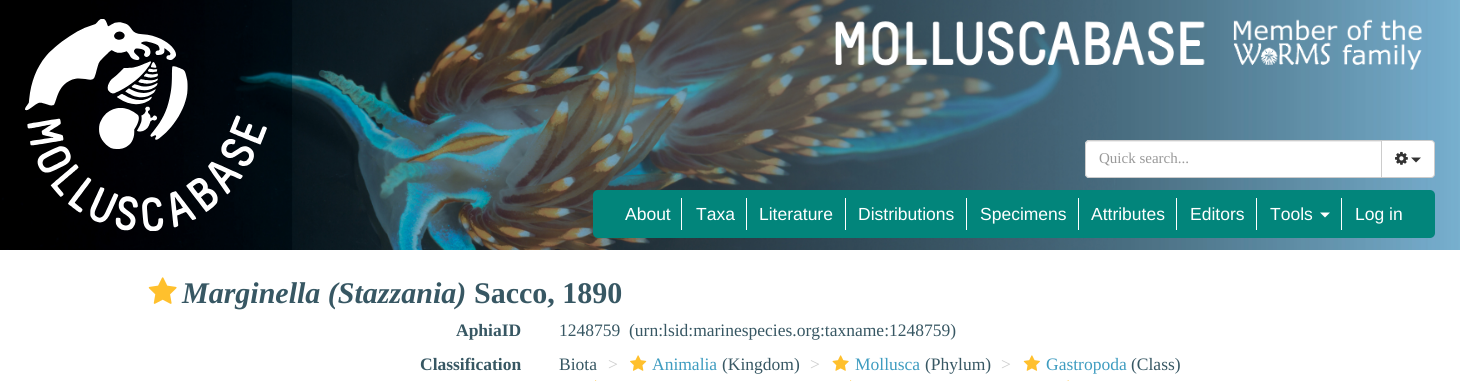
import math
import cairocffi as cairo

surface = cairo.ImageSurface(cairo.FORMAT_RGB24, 1460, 381)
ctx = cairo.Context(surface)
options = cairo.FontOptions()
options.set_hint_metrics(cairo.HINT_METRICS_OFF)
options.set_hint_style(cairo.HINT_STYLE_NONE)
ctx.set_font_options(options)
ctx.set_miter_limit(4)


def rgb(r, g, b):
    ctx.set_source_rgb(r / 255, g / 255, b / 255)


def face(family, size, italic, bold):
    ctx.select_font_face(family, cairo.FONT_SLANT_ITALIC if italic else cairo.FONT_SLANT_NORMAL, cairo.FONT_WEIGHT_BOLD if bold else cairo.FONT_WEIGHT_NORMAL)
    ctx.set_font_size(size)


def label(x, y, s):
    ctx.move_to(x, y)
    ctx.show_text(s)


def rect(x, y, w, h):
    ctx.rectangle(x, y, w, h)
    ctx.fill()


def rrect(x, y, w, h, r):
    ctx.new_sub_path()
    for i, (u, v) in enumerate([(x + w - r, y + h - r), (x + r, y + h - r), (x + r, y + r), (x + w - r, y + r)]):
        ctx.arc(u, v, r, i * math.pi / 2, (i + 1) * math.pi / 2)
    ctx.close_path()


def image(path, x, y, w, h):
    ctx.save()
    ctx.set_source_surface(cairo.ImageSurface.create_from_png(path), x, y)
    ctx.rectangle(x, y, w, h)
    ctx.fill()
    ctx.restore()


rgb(255, 255, 255)
ctx.paint()
image('image0.png', 0, 0, 1460, 250)
image('image1.png', 25, 19, 242, 212)
image('image2.png', 835, 19, 587, 51)
rgb(255, 255, 255)
ctx.new_path()
ctx.move_to(1089, 140)
ctx.line_to(1383, 140)
ctx.line_to(1383, 178)
ctx.line_to(1089, 178)
ctx.curve_to(1087, 178, 1085, 176, 1085, 174)
ctx.line_to(1085, 144)
ctx.curve_to(1085, 142, 1087, 140, 1089, 140)
ctx.close_path()
ctx.fill()
rgb(236, 236, 236)
ctx.new_path()
ctx.move_to(1089, 142)
ctx.line_to(1381, 142)
ctx.line_to(1381, 141)
ctx.line_to(1088, 141)
ctx.curve_to(1086, 141, 1086, 143, 1086, 145)
ctx.curve_to(1086, 144, 1087, 142, 1089, 142)
ctx.close_path()
ctx.fill()
ctx.new_path()
ctx.move_to(1089, 140.5)
ctx.line_to(1382.5, 140.5)
ctx.line_to(1382.5, 177.5)
ctx.line_to(1089, 177.5)
ctx.curve_to(1087, 177.5, 1085.5, 176, 1085.5, 174)
ctx.line_to(1085.5, 144)
ctx.curve_to(1085.5, 142, 1087, 140.5, 1089, 140.5)
ctx.close_path()
rgb(204, 204, 204)
ctx.set_line_width(1)
ctx.stroke()
face('Liberation Serif', 15, 0, 0)
rgb(153, 153, 153)
label(1099, 163, 'Quick search...')
rgb(255, 255, 255)
ctx.new_path()
ctx.move_to(1381.5, 140.5)
ctx.line_to(1431, 140.5)
ctx.curve_to(1433, 140.5, 1434.5, 142, 1434.5, 144)
ctx.line_to(1434.5, 174)
ctx.curve_to(1434.5, 176, 1433, 177.5, 1431, 177.5)
ctx.line_to(1381.5, 177.5)
ctx.close_path()
ctx.fill_preserve()
rgb(204, 204, 204)
ctx.stroke()
image('image3.png', 1395, 151, 13, 14)
rgb(51, 51, 51)
ctx.new_path()
ctx.move_to(1411, 157.5)
ctx.line_to(1421, 157.5)
ctx.line_to(1416, 162.5)
ctx.close_path()
ctx.fill()
rgb(2, 133, 123)
rrect(593, 190, 842, 48, 5)
ctx.fill()
face('Liberation Sans', 17.5, 0, 0)
rgb(255, 255, 255)
label(625, 220, 'About')
rect(681, 198, 1, 32)
label(696, 220, 'Taxa')
rect(746, 198, 1, 32)
label(759, 220, 'Literature')
rect(845, 198, 1, 32)
label(858, 220, 'Distributions')
rect(966, 198, 1, 32)
label(980, 220, 'Specimens')
rect(1078, 198, 1, 32)
label(1091, 220, 'Attributes')
rect(1176, 198, 1, 32)
label(1190, 220, 'Editors')
rect(1256, 198, 1, 32)
label(1270, 220, 'Tools')
ctx.new_path()
ctx.move_to(1320, 212.5)
ctx.line_to(1330, 212.5)
ctx.line_to(1325, 217.5)
ctx.close_path()
ctx.fill()
rect(1341, 198, 1, 32)
label(1355, 220, 'Log in')
image('image4.png', 148, 277, 29, 27)
face('Liberation Serif', 30, 1, 1)
rgb(55, 87, 99)
label(182, 303, 'Marginella (Stazzania)')
face('Liberation Serif', 30, 0, 1)
label(474, 303, 'Sacco, 1890')
face('Liberation Serif', 17.5, 0, 1)
label(456, 336, 'AphiaID')
face('Liberation Serif', 17.5, 0, 0)
label(559, 336, '1248759')
label(629, 336, '(urn:lsid:marinespecies.org:taxname:1248759)')
face('Liberation Serif', 17.5, 0, 1)
label(420, 370, 'Classification')
face('Liberation Serif', 17.5, 0, 0)
label(559, 370, 'Biota')
rgb(204, 204, 204)
label(608, 370, '>')
image('image5.png', 630, 355, 17, 16)
rgb(62, 156, 192)
label(652, 370, 'Animalia')
rgb(55, 87, 99)
label(722, 370, '(Kingdom)')
rgb(204, 204, 204)
label(810, 370, '>')
image('image6.png', 832, 355, 17, 16)
rgb(62, 156, 192)
label(855, 370, 'Mollusca')
rgb(55, 87, 99)
label(925, 370, '(Phylum)')
rgb(204, 204, 204)
label(1001, 370, '>')
image('image7.png', 1023, 355, 17, 16)
rgb(62, 156, 192)
label(1046, 370, 'Gastropoda')
rgb(55, 87, 99)
label(1131, 370, '(Class)')
image('image8.png', 595, 380, 2, 1)
image('image8.png', 850, 380, 2, 1)
image('image9.png', 1067, 380, 2, 1)
surface.write_to_png('render.png')
